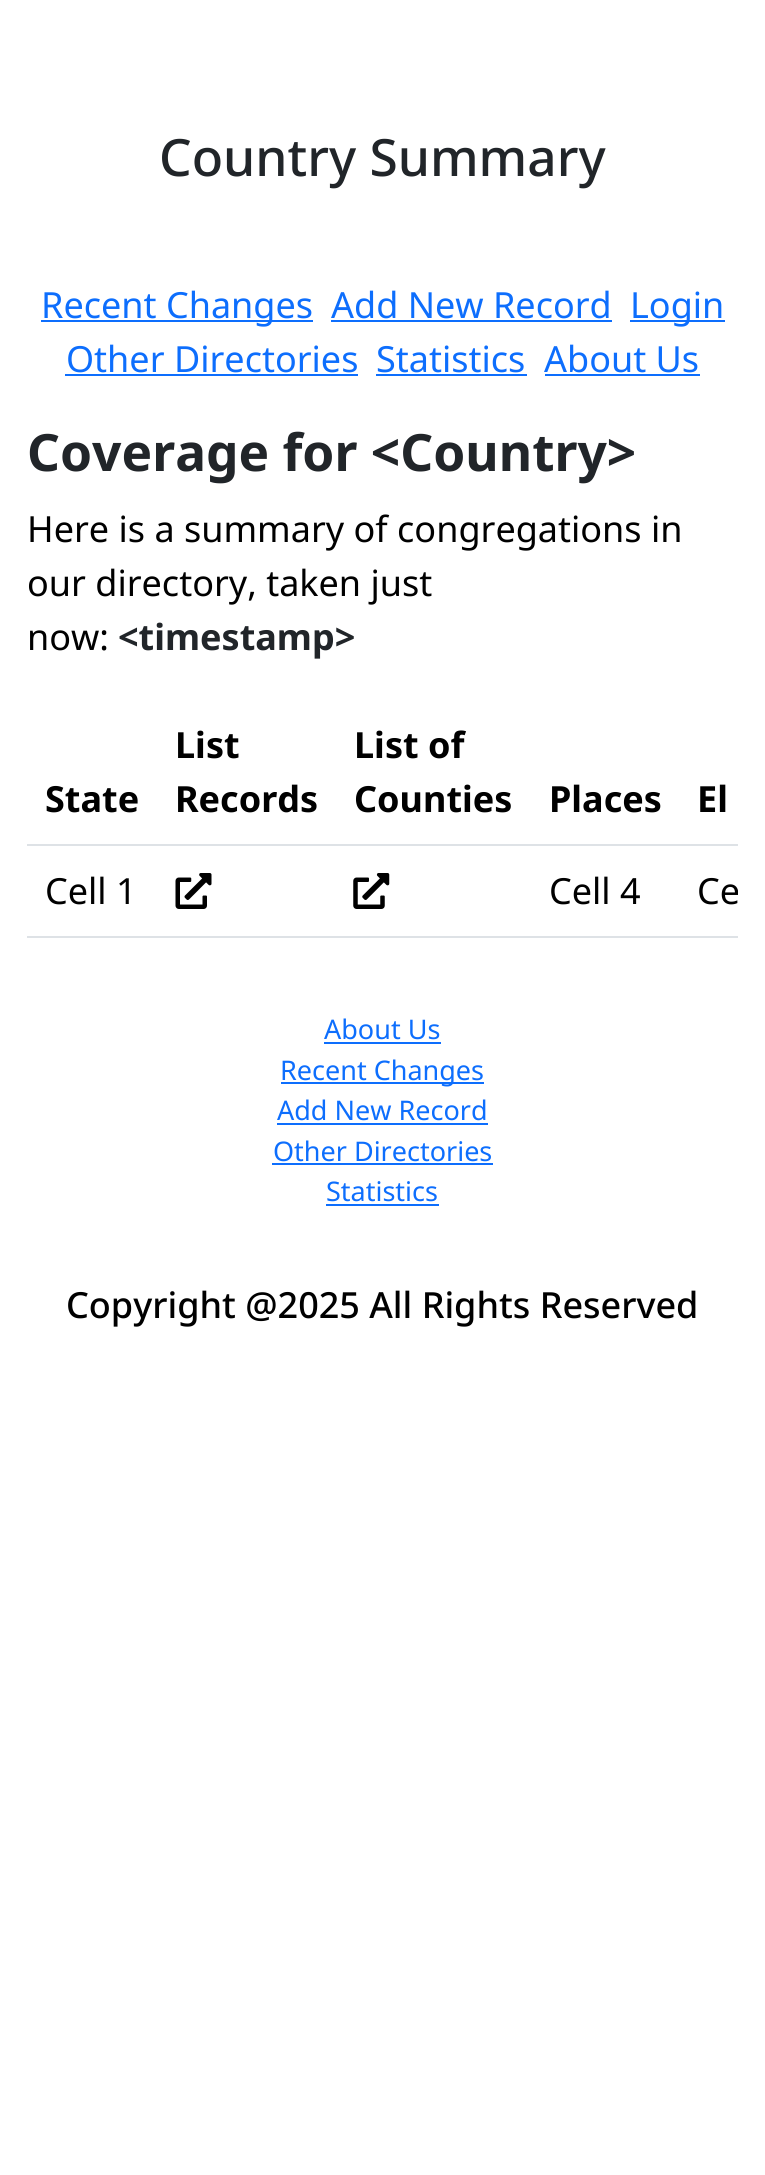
import math
import cairocffi as cairo

surface = cairo.ImageSurface(cairo.FORMAT_RGB24, 765, 2175)
ctx = cairo.Context(surface)
options = cairo.FontOptions()
options.set_hint_metrics(cairo.HINT_METRICS_OFF)
options.set_hint_style(cairo.HINT_STYLE_NONE)
ctx.set_font_options(options)
ctx.set_miter_limit(4)


def rgb(r, g, b):
    ctx.set_source_rgb(r / 255, g / 255, b / 255)


def face(family, size, italic, bold):
    ctx.select_font_face(family, cairo.FONT_SLANT_ITALIC if italic else cairo.FONT_SLANT_NORMAL, cairo.FONT_WEIGHT_BOLD if bold else cairo.FONT_WEIGHT_NORMAL)
    ctx.set_font_size(size)


def label(x, y, s):
    ctx.move_to(x, y)
    ctx.show_text(s)


def rect(x, y, w, h):
    ctx.rectangle(x, y, w, h)
    ctx.fill()


def image(path, x, y, w, h):
    ctx.save()
    ctx.set_source_surface(cairo.ImageSurface.create_from_png(path), x, y)
    ctx.rectangle(x, y, w, h)
    ctx.fill()
    ctx.restore()


rgb(255, 255, 255)
ctx.paint()
face('Noto Sans Medium', 51.4, 0, 0)
rgb(33, 37, 41)
label(159, 176, 'Country Summary')
rgb(13, 110, 253)
rect(41, 320, 272, 2)
face('Noto Sans', 36, 0, 0)
label(41, 318, 'Recent Changes')
label(331, 318, 'Add New Record')
rect(331, 320, 281, 2)
rect(630, 320, 95, 2)
label(630, 318, 'Login')
label(66, 372, 'Other Directories')
rect(65, 374, 293, 2)
label(376, 372, 'Statistics')
rect(376, 374, 151, 2)
label(544, 372, 'About Us')
rect(545, 374, 155, 2)
face('Noto Sans', 51.4, 0, 1)
rgb(33, 37, 41)
label(27, 471, 'Coverage for <Country>')
face('Noto Sans', 36, 0, 0)
rgb(0, 0, 0)
label(27, 542, 'Here is a summary of congregations in')
label(27, 596, 'our directory, taken just')
label(27, 650, 'now:')
face('Noto Sans', 36, 0, 1)
rgb(33, 37, 41)
label(118, 650, '<timestamp>')
rgb(0, 0, 0)
label(45, 812, 'State')
label(175, 758, 'List')
label(175, 812, 'Records')
label(354, 758, 'List of')
label(354, 812, 'Counties')
label(549, 812, 'Places')
rgb(222, 226, 230)
rect(27, 844, 711, 2)
rgb(0, 0, 0)
label(697, 812, 'El')
face('Noto Sans', 36, 0, 0)
label(45, 904, 'Cell 1')
image('image0.png', 175, 873, 37, 36)
image('image1.png', 353, 873, 37, 36)
label(549, 904, 'Cell 4')
rgb(222, 226, 230)
rect(27, 936, 711, 2)
ctx.save()
ctx.rectangle(27, 700, 711, 274)
ctx.clip()
rgb(0, 0, 0)
label(697, 904, 'Ce')
ctx.restore()
face('Noto Sans', 27, 0, 0)
rgb(13, 110, 253)
label(324, 1039, 'About Us')
rect(324, 1042, 117, 2)
rect(281, 1082, 203, 2)
label(280, 1080, 'Recent Changes')
label(277, 1120, 'Add New Record')
rect(277, 1123, 211, 2)
label(273, 1161, 'Other Directories')
rect(272, 1163, 221, 2)
label(326, 1201, 'Statistics')
rect(326, 1204, 113, 2)
face('Noto Sans Medium', 36, 0, 0)
rgb(0, 0, 0)
label(66, 1318, 'Copyright @2025 All Rights Reserved')
surface.write_to_png('render.png')
